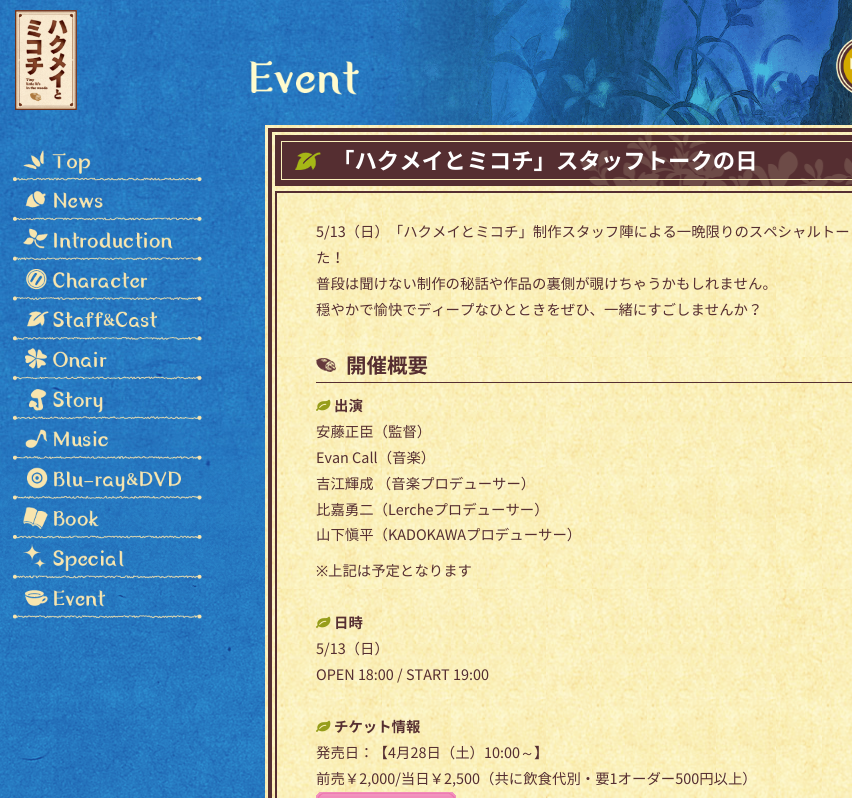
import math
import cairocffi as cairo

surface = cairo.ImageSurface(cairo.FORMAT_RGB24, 852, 798)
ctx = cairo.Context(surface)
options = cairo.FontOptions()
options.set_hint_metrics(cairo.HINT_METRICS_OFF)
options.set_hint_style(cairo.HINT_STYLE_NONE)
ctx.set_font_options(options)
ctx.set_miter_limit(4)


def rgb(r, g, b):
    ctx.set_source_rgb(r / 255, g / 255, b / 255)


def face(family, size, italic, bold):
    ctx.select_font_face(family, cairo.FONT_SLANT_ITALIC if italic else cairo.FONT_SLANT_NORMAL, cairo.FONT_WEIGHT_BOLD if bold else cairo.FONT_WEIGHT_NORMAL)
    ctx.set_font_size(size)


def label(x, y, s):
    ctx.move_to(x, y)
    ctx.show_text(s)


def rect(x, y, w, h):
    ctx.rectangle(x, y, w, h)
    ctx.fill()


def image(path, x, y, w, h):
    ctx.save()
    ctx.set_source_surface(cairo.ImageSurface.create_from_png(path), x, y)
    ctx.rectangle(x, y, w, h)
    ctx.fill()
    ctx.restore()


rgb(255, 255, 255)
ctx.paint()
image('image0.png', 0, 0, 852, 620)
image('image1.png', 0, 423, 265, 375)
image('image2.png', 373, 0, 479, 125)
image('image3.png', 15, 10, 62, 100)
image('image4.png', 249, 61, 110, 34)
image('image5.png', 836, 39, 16, 54)
image('image6.png', 13, 150, 189, 32)
image('image7.png', 13, 191, 189, 30)
image('image8.png', 13, 228, 189, 33)
image('image9.png', 13, 269, 189, 32)
image('image10.png', 13, 311, 189, 30)
image('image11.png', 13, 348, 189, 33)
image('image12.png', 13, 389, 189, 32)
image('image13.png', 13, 429, 189, 31)
image('image14.png', 13, 467, 189, 33)
image('image15.png', 13, 507, 189, 38)
image('image16.png', 13, 545, 189, 34)
image('image17.png', 13, 590, 189, 29)
image('image18.png', 265, 125, 587, 673)
ctx.rectangle(270, 130, 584, 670)
rgb(85, 46, 49)
ctx.set_line_width(4)
ctx.stroke()
rect(275, 135, 577, 51)
image('image19.png', 580, 135, 272, 51)
image('image20.png', 295, 152, 26, 18)
ctx.rectangle(281.5, 141.5, 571, 38)
rgb(250, 241, 187)
ctx.set_line_width(1)
ctx.stroke()
face('Noto Sans JP', 22.4, 0, 1)
rgb(255, 255, 255)
label(332, 169, '「ハクメイとミコチ」スタッフトークの日')
ctx.rectangle(276, 192, 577, 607)
rgb(85, 46, 49)
ctx.set_line_width(2)
ctx.stroke()
face('Noto Sans JP', 14.4, 0, 0)
label(316, 237, '5/13（日）「ハクメイとミコチ」制作スタッフ陣による一晩限りのスペシャルトー')
label(316, 263, 'た！')
label(316, 289, '普段は聞けない制作の秘話や作品の裏側が覗けちゃうかもしれません。')
label(316, 315, '穏やかで愉快でディープなひとときをぜひ、一緒にすごしませんか？')
image('image21.png', 316, 358, 20, 14)
rect(316, 382, 536, 1)
face('Noto Sans JP', 20.5, 0, 1)
label(346, 373, '開催概要')
image('image22.png', 316, 399, 15, 12)
face('Noto Sans JP', 14.4, 0, 1)
label(334, 411, '出演')
face('Noto Sans JP', 14.4, 0, 0)
label(316, 437, '安藤正臣（監督）')
label(316, 463, 'Evan Call（音楽）')
label(316, 489, '吉江輝成 （音楽プロデューサー）')
label(316, 515, '比嘉勇二（Lercheプロデューサー）')
label(316, 540, '山下愼平（KADOKAWAプロデューサー）')
face('Noto Sans', 14.4, 0, 0)
label(316, 576, '※')
face('Noto Sans JP', 14.4, 0, 0)
label(328, 576, '上記は予定となります')
image('image23.png', 316, 616, 15, 12)
face('Noto Sans JP', 14.4, 0, 1)
label(334, 628, '日時')
face('Noto Sans JP', 14.4, 0, 0)
label(316, 654, '5/13（日）')
label(316, 680, 'OPEN 18:00 / START 19:00')
image('image24.png', 316, 720, 15, 12)
face('Noto Sans JP', 14.4, 0, 1)
label(334, 732, 'チケット情報')
face('Noto Sans JP', 14.4, 0, 0)
label(316, 758, '発売日：【4月28日（土）10:00')
face('WenQuanYi Zen Hei Medium', 14.4, 0, 0)
label(520, 758, '～')
face('Noto Sans JP', 14.4, 0, 0)
label(534, 758, '】')
label(316, 784, '前売￥2,000/当日￥2,500（共に飲食代別・要1オーダー500円以上）')
image('image25.png', 316, 792, 140, 6)
surface.write_to_png('render.png')
